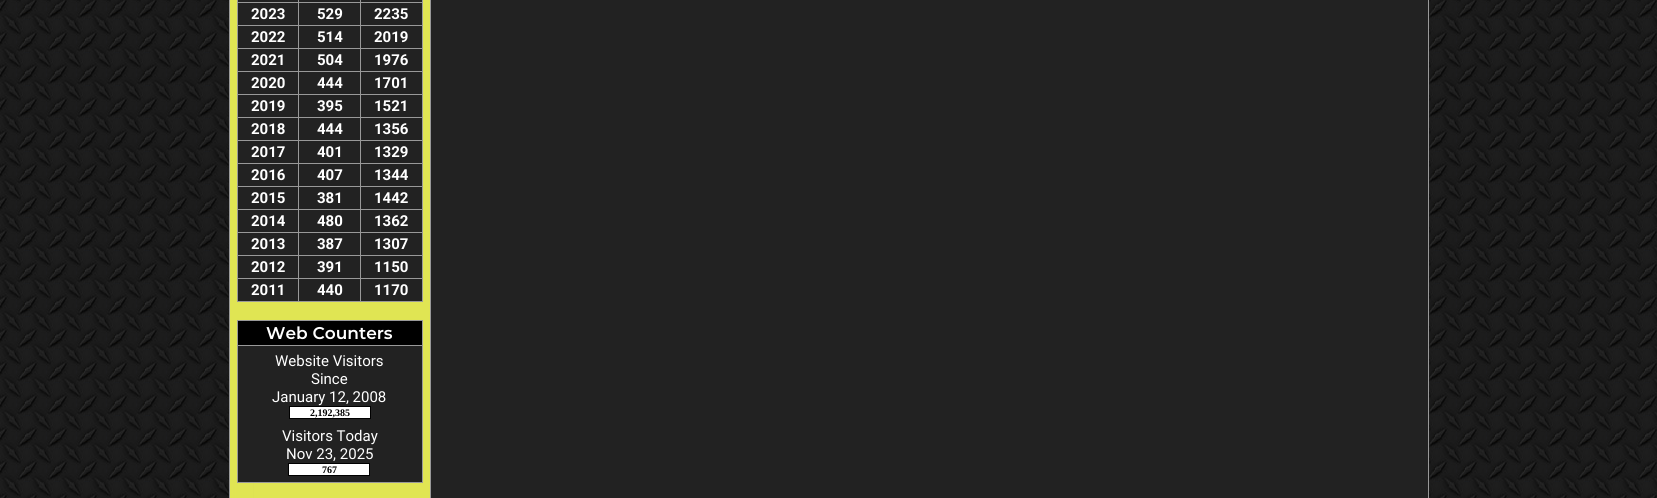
import math
import cairocffi as cairo

surface = cairo.ImageSurface(cairo.FORMAT_RGB24, 1657, 498)
ctx = cairo.Context(surface)
options = cairo.FontOptions()
options.set_hint_metrics(cairo.HINT_METRICS_OFF)
options.set_hint_style(cairo.HINT_STYLE_NONE)
ctx.set_font_options(options)
ctx.set_miter_limit(4)


def rgb(r, g, b):
    ctx.set_source_rgb(r / 255, g / 255, b / 255)


def face(family, size, italic, bold):
    ctx.select_font_face(family, cairo.FONT_SLANT_ITALIC if italic else cairo.FONT_SLANT_NORMAL, cairo.FONT_WEIGHT_BOLD if bold else cairo.FONT_WEIGHT_NORMAL)
    ctx.set_font_size(size)


def label(x, y, s):
    ctx.move_to(x, y)
    ctx.show_text(s)


def rect(x, y, w, h):
    ctx.rectangle(x, y, w, h)
    ctx.fill()


def image(path, x, y, w, h):
    ctx.save()
    ctx.set_source_surface(cairo.ImageSurface.create_from_png(path), x, y)
    ctx.rectangle(x, y, w, h)
    ctx.fill()
    ctx.restore()


rgb(255, 255, 255)
ctx.paint()
image('image0.png', 0, 0, 1657, 498)
rgb(153, 153, 153)
rect(229, 0, 1, 483)
rgb(224, 229, 83)
rect(230, 0, 200, 483)
rgb(153, 153, 153)
rect(237, 0, 186, 302)
rgb(34, 34, 34)
rect(238, 0, 60, 2)
rect(299, 0, 61, 2)
rect(361, 0, 61, 2)
rect(238, 3, 60, 22)
face('Roboto', 15, 0, 1)
rgb(255, 255, 255)
label(251, 19, '2023')
rgb(34, 34, 34)
rect(299, 3, 61, 22)
rgb(255, 255, 255)
label(317, 19, '529')
rgb(34, 34, 34)
rect(361, 3, 61, 22)
rgb(255, 255, 255)
label(374, 19, '2235')
rgb(34, 34, 34)
rect(238, 26, 60, 22)
rgb(255, 255, 255)
label(251, 42, '2022')
rgb(34, 34, 34)
rect(299, 26, 61, 22)
rgb(255, 255, 255)
label(317, 42, '514')
rgb(34, 34, 34)
rect(361, 26, 61, 22)
rgb(255, 255, 255)
label(374, 42, '2019')
rgb(34, 34, 34)
rect(238, 49, 60, 22)
rgb(255, 255, 255)
label(251, 65, '2021')
rgb(34, 34, 34)
rect(299, 49, 61, 22)
rgb(255, 255, 255)
label(317, 65, '504')
rgb(34, 34, 34)
rect(361, 49, 61, 22)
rgb(255, 255, 255)
label(374, 65, '1976')
rgb(34, 34, 34)
rect(238, 72, 60, 22)
rgb(255, 255, 255)
label(251, 88, '2020')
rgb(34, 34, 34)
rect(299, 72, 61, 22)
rgb(255, 255, 255)
label(317, 88, '444')
rgb(34, 34, 34)
rect(361, 72, 61, 22)
rgb(255, 255, 255)
label(374, 88, '1701')
rgb(34, 34, 34)
rect(238, 95, 60, 22)
rgb(255, 255, 255)
label(251, 111, '2019')
rgb(34, 34, 34)
rect(299, 95, 61, 22)
rgb(255, 255, 255)
label(317, 111, '395')
rgb(34, 34, 34)
rect(361, 95, 61, 22)
rgb(255, 255, 255)
label(374, 111, '1521')
rgb(34, 34, 34)
rect(238, 118, 60, 22)
rgb(255, 255, 255)
label(251, 134, '2018')
rgb(34, 34, 34)
rect(299, 118, 61, 22)
rgb(255, 255, 255)
label(317, 134, '444')
rgb(34, 34, 34)
rect(361, 118, 61, 22)
rgb(255, 255, 255)
label(374, 134, '1356')
rgb(34, 34, 34)
rect(238, 141, 60, 22)
rgb(255, 255, 255)
label(251, 157, '2017')
rgb(34, 34, 34)
rect(299, 141, 61, 22)
rgb(255, 255, 255)
label(317, 157, '401')
rgb(34, 34, 34)
rect(361, 141, 61, 22)
rgb(255, 255, 255)
label(374, 157, '1329')
rgb(34, 34, 34)
rect(238, 164, 60, 22)
rgb(255, 255, 255)
label(251, 180, '2016')
rgb(34, 34, 34)
rect(299, 164, 61, 22)
rgb(255, 255, 255)
label(317, 180, '407')
rgb(34, 34, 34)
rect(361, 164, 61, 22)
rgb(255, 255, 255)
label(374, 180, '1344')
rgb(34, 34, 34)
rect(238, 187, 60, 22)
rgb(255, 255, 255)
label(251, 203, '2015')
rgb(34, 34, 34)
rect(299, 187, 61, 22)
rgb(255, 255, 255)
label(317, 203, '381')
rgb(34, 34, 34)
rect(361, 187, 61, 22)
rgb(255, 255, 255)
label(374, 203, '1442')
rgb(34, 34, 34)
rect(238, 210, 60, 22)
rgb(255, 255, 255)
label(251, 226, '2014')
rgb(34, 34, 34)
rect(299, 210, 61, 22)
rgb(255, 255, 255)
label(317, 226, '480')
rgb(34, 34, 34)
rect(361, 210, 61, 22)
rgb(255, 255, 255)
label(374, 226, '1362')
rgb(34, 34, 34)
rect(238, 233, 60, 22)
rgb(255, 255, 255)
label(251, 249, '2013')
rgb(34, 34, 34)
rect(299, 233, 61, 22)
rgb(255, 255, 255)
label(317, 249, '387')
rgb(34, 34, 34)
rect(361, 233, 61, 22)
rgb(255, 255, 255)
label(374, 249, '1307')
rgb(34, 34, 34)
rect(238, 256, 60, 22)
rgb(255, 255, 255)
label(251, 272, '2012')
rgb(34, 34, 34)
rect(299, 256, 61, 22)
rgb(255, 255, 255)
label(317, 272, '391')
rgb(34, 34, 34)
rect(361, 256, 61, 22)
rgb(255, 255, 255)
label(374, 272, '1150')
rgb(34, 34, 34)
rect(238, 279, 60, 22)
rgb(255, 255, 255)
label(251, 295, '2011')
rgb(34, 34, 34)
rect(299, 279, 61, 22)
rgb(255, 255, 255)
label(317, 295, '440')
rgb(34, 34, 34)
rect(361, 279, 61, 22)
rgb(255, 255, 255)
label(374, 295, '1170')
rgb(153, 153, 153)
rect(237, 320, 186, 163)
rgb(0, 0, 0)
rect(238, 321, 184, 24)
face('Montserrat SemiBold', 17, 0, 0)
rgb(255, 255, 255)
label(266, 339, 'Web Counters')
rgb(34, 34, 34)
rect(238, 346, 184, 136)
face('Roboto', 15, 0, 0)
rgb(255, 255, 255)
label(275, 366, 'Website Visitors')
label(311, 384, 'Since')
label(272, 402, 'January 12, 2008')
rgb(0, 0, 0)
rect(289, 406, 82, 13)
rgb(255, 255, 255)
rect(290, 407, 80, 11)
face('Liberation Serif', 10, 0, 1)
rgb(0, 0, 0)
label(310, 416, '2,192,385')
face('Roboto', 15, 0, 0)
rgb(255, 255, 255)
label(282, 441, 'Visitors Today')
label(286, 459, 'Nov 23, 2025')
rgb(0, 0, 0)
rect(288, 463, 82, 13)
rgb(255, 255, 255)
rect(289, 464, 80, 11)
face('Liberation Serif', 10, 0, 1)
rgb(0, 0, 0)
label(322, 473, '767')
rgb(153, 153, 153)
rect(430, 0, 1, 483)
rgb(34, 34, 34)
rect(431, 0, 997, 483)
rgb(153, 153, 153)
rect(1428, 0, 1, 483)
image('image1.png', 229, 483, 1200, 15)
surface.write_to_png('render.png')
